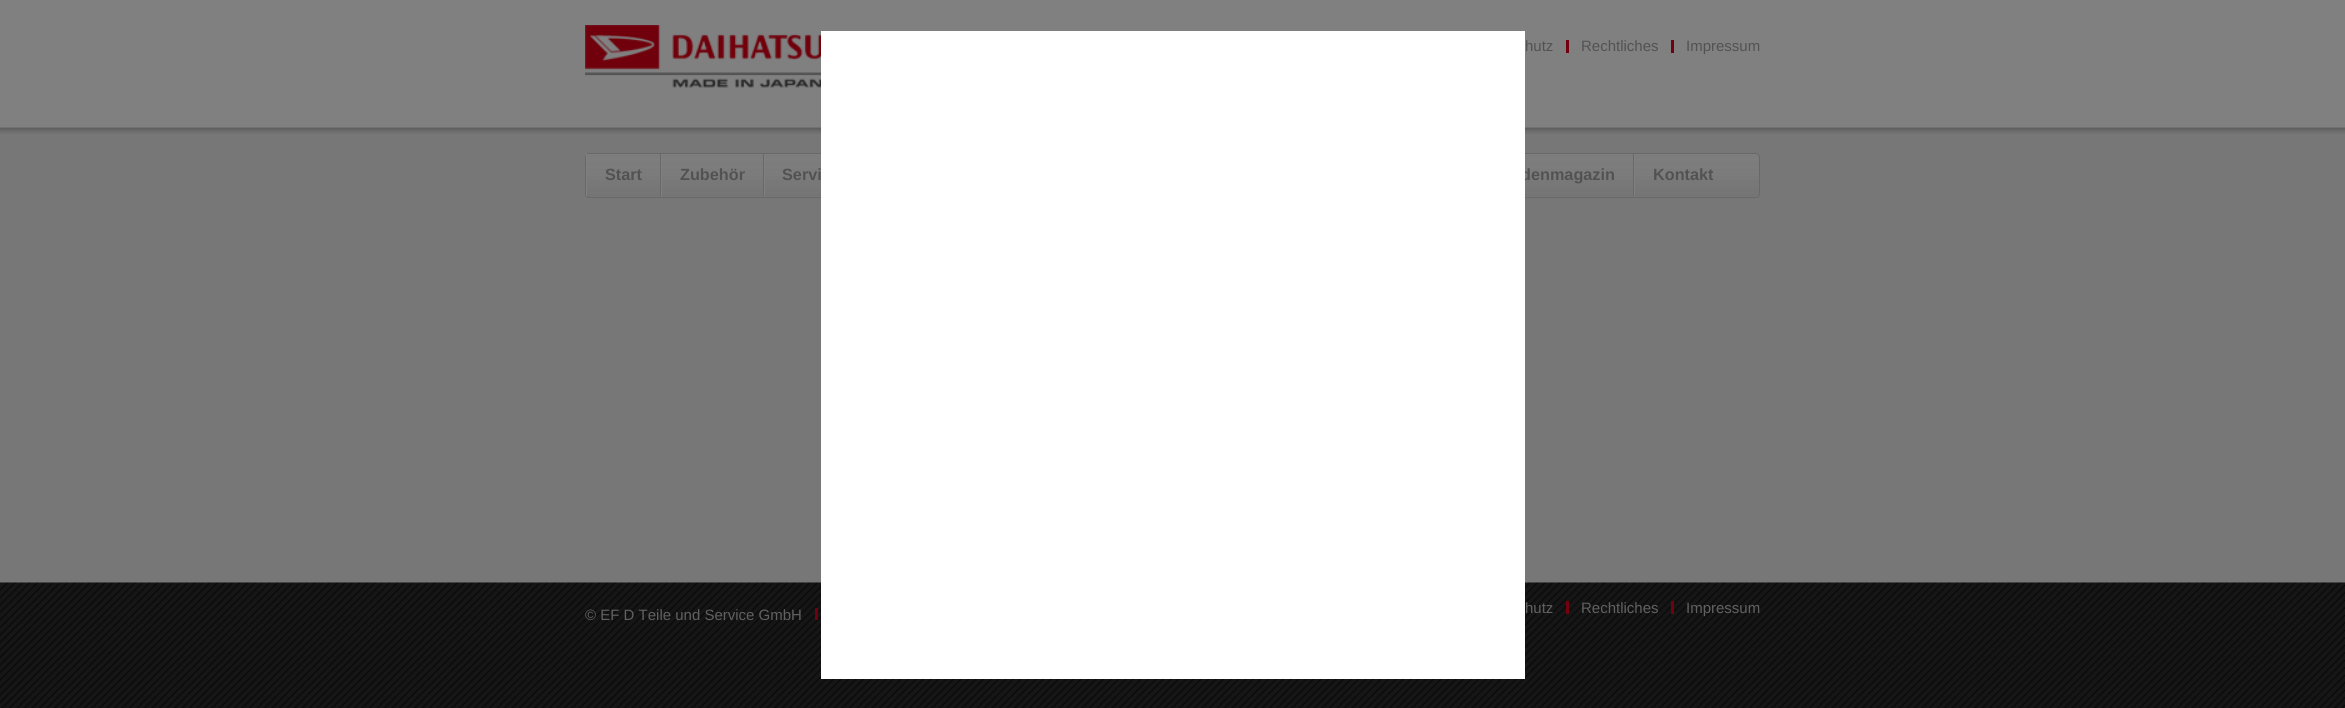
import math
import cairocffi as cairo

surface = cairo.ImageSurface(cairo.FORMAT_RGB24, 2345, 708)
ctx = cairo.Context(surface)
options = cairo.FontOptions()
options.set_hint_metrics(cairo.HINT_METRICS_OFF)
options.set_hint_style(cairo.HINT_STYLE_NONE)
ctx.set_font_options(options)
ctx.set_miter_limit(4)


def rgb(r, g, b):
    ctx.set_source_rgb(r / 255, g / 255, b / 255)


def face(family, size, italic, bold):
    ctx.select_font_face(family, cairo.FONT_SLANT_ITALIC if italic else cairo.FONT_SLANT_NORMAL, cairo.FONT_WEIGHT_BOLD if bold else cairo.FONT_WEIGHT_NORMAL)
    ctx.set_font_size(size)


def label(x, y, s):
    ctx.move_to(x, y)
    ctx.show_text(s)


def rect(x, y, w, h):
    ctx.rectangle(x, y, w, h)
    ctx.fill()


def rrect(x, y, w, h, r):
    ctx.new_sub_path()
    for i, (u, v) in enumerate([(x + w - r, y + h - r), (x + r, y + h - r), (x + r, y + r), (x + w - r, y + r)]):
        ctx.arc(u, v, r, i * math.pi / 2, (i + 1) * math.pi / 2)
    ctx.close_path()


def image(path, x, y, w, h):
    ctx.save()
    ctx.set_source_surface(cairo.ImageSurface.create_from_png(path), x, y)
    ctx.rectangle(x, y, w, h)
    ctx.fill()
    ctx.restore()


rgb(119, 119, 119)
ctx.paint()
rgb(128, 128, 128)
rect(0, 0, 2345, 128)
image('image0.png', 585, 25, 238, 63)
image('image1.png', 0, 127, 2345, 7)
image('image2.png', 585, 153, 1175, 43)
rrect(585.5, 153.5, 1174, 44, 3.5)
rgb(104, 104, 104)
ctx.set_line_width(1)
ctx.stroke()
face('Liberation Sans', 16.25, 0, 1)
rgb(82, 82, 82)
label(1521, 180, 'denmagazin')
image('image3.png', 0, 582, 2345, 126)
rgb(255, 255, 255)
rect(821, 31, 704, 648)
rgb(114, 0, 14)
rect(1566, 40, 3, 13)
face('Liberation Sans', 15, 0, 0)
rgb(82, 82, 82)
label(1525, 51, 'hutz')
rgb(114, 0, 14)
rect(1671, 40, 3, 13)
rgb(82, 82, 82)
label(1581, 51, 'Rechtliches')
label(1686, 51, 'Impressum')
rgb(104, 104, 104)
rect(660, 154, 1, 42)
rgb(128, 128, 128)
rect(586, 154, 1, 42)
face('Liberation Sans', 16.25, 0, 1)
rgb(82, 82, 82)
label(605, 180, 'Start')
rgb(104, 104, 104)
rect(763, 154, 1, 42)
rgb(128, 128, 128)
rect(661, 154, 1, 42)
rgb(82, 82, 82)
label(680, 180, 'Zubehör')
rgb(128, 128, 128)
rect(764, 154, 1, 42)
rgb(82, 82, 82)
label(782, 180, 'Servi')
rgb(104, 104, 104)
rect(1633, 154, 1, 42)
rgb(128, 128, 128)
rect(1634, 154, 1, 42)
rgb(82, 82, 82)
label(1653, 180, 'Kontakt')
face('Liberation Sans', 15, 0, 0)
rgb(97, 97, 97)
label(585, 620, '© EF D Teile und Service GmbH')
rgb(114, 0, 14)
rect(815, 608, 3, 12)
rect(1566, 601, 3, 13)
rgb(97, 97, 97)
label(1525, 613, 'hutz')
rgb(114, 0, 14)
rect(1671, 601, 3, 13)
rgb(97, 97, 97)
label(1581, 613, 'Rechtliches')
label(1686, 613, 'Impressum')
surface.write_to_png('render.png')
